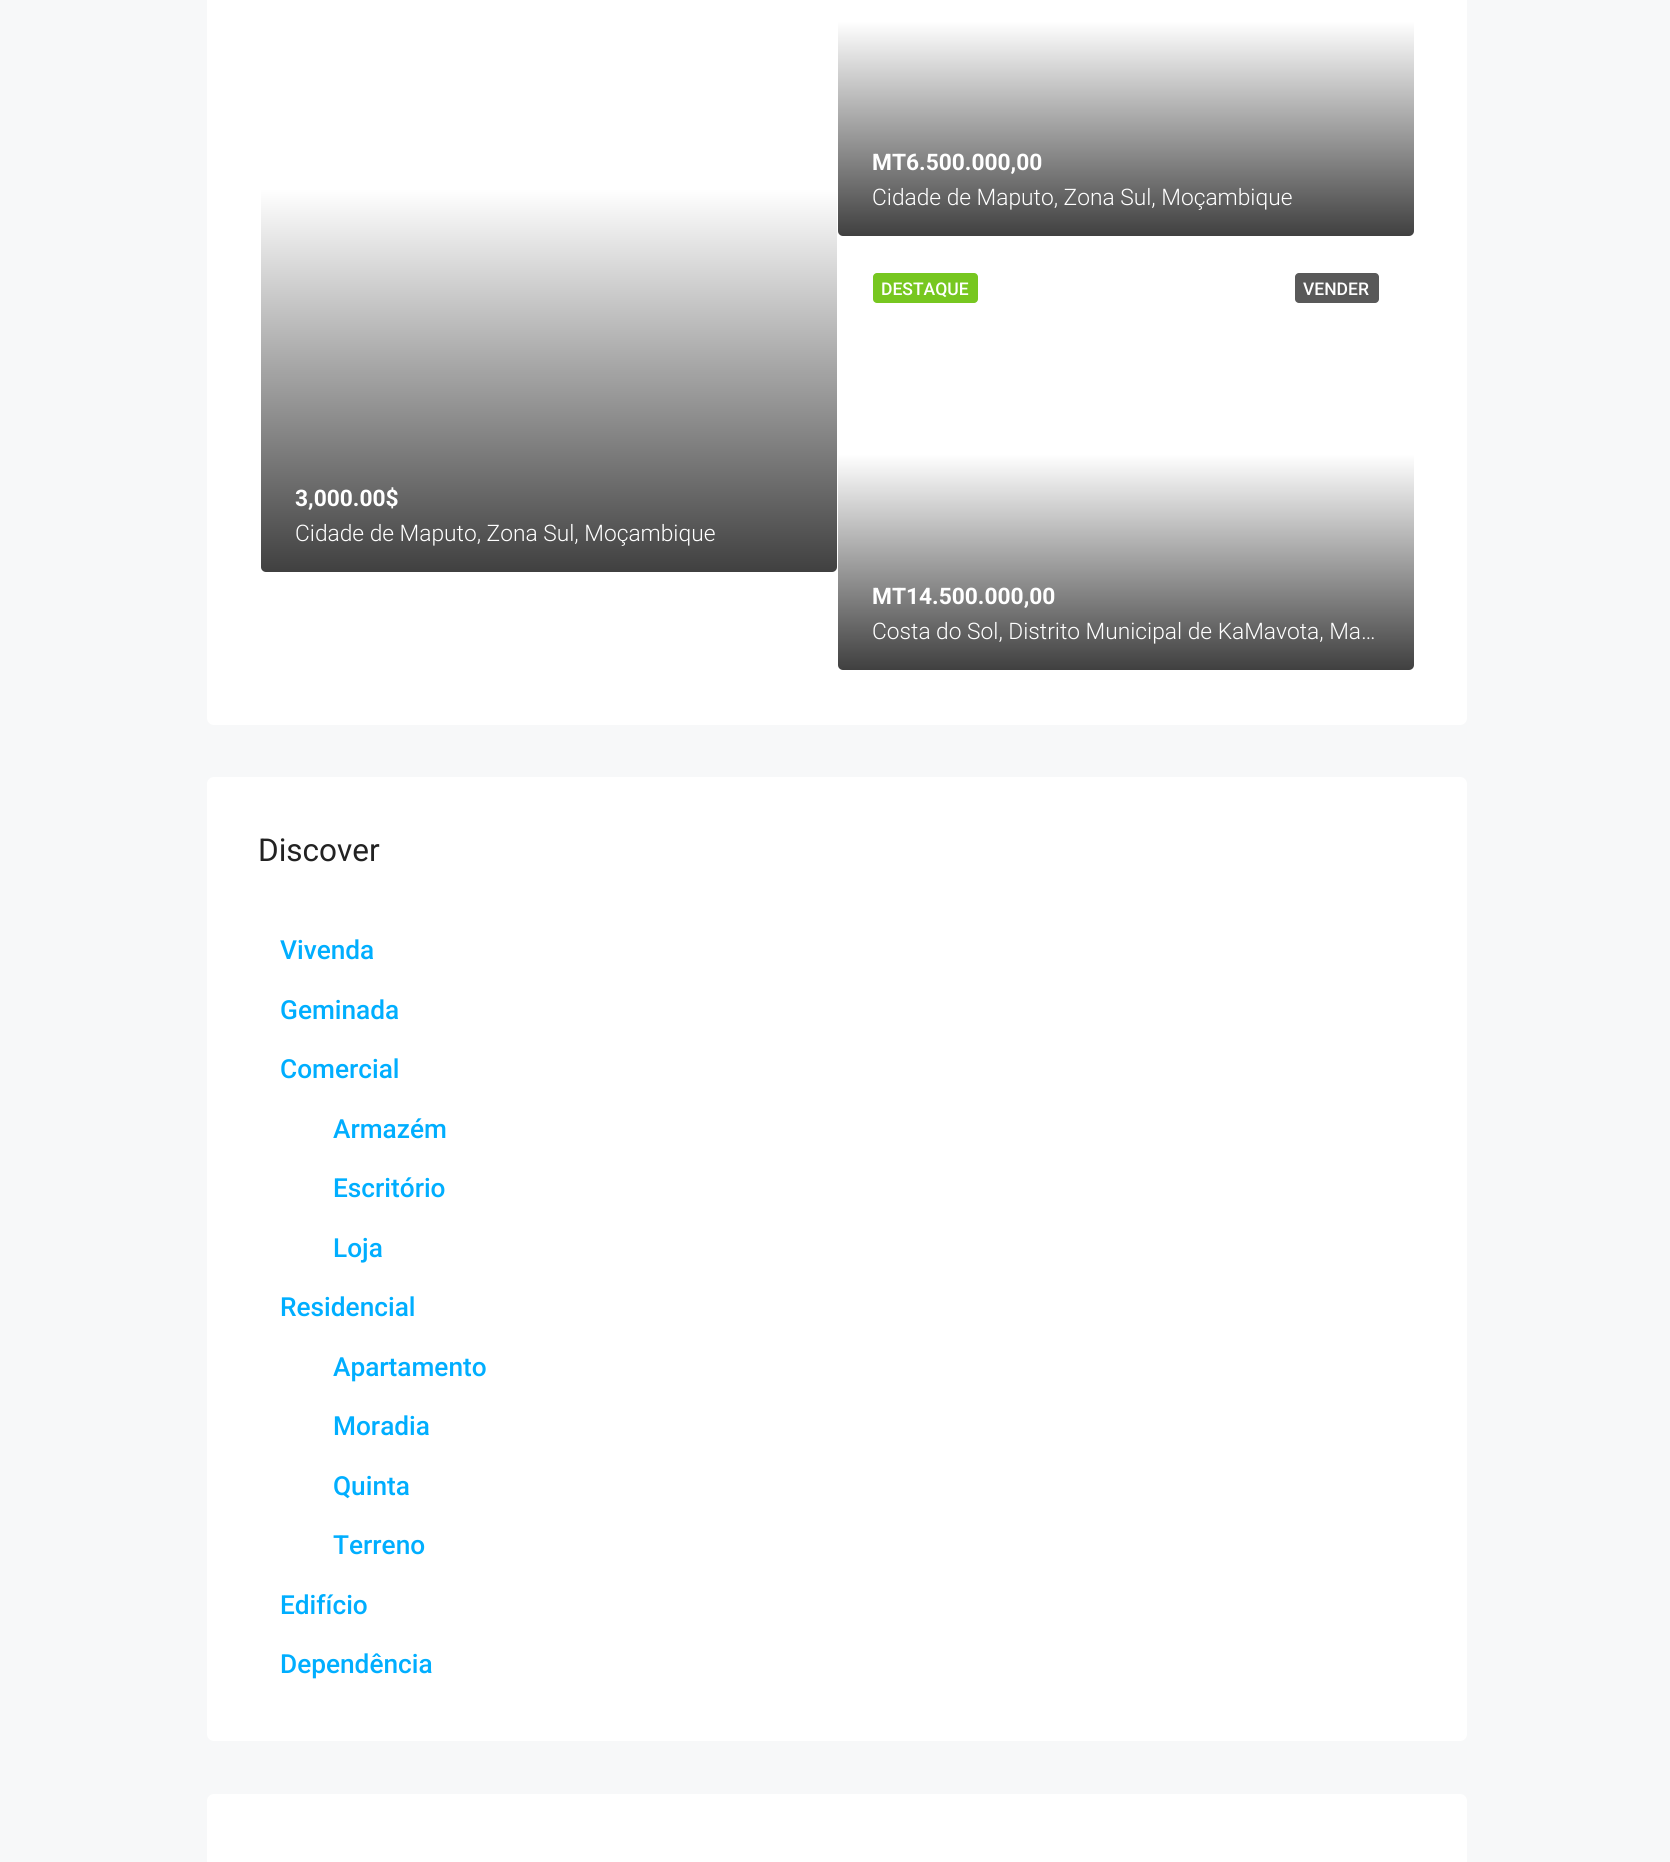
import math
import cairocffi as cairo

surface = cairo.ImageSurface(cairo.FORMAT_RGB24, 1670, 1862)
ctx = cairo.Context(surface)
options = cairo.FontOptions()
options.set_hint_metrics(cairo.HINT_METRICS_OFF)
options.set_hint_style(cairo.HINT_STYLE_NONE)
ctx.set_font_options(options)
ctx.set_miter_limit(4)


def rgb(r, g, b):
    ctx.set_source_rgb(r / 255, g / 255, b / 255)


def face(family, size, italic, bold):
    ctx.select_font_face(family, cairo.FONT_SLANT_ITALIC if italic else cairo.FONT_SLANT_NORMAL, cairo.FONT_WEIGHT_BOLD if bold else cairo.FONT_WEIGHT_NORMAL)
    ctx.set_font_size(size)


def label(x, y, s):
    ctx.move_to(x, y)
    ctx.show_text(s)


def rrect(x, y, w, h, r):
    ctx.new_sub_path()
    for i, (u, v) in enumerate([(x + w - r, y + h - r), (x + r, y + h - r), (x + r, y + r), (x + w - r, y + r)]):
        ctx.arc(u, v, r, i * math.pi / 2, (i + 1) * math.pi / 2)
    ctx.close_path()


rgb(247, 248, 249)
ctx.paint()
rgb(255, 255, 255)
rrect(207, -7, 1260, 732, 7)
ctx.fill()
gradient = cairo.LinearGradient(1126, -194, 1126, 236)
gradient.add_color_stop_rgba(0, 1, 1, 1, 1)
gradient.add_color_stop_rgba(0.5, 1, 1, 1, 1)
gradient.add_color_stop_rgba(1, 0.251, 0.251, 0.251, 1)
ctx.set_source(gradient)
rrect(838, -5, 576, 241, 5)
ctx.fill()
face('Roboto', 22.75, 0, 1)
rgb(255, 255, 255)
label(872, 170, 'MT6.500.000,00')
face('Roboto Light', 22.75, 0, 0)
label(872, 205, 'Cidade de Maputo, Zona Sul, Moçambique')
gradient = cairo.LinearGradient(549, -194, 549, 572)
gradient.add_color_stop_rgba(0, 1, 1, 1, 1)
gradient.add_color_stop_rgba(0.5, 1, 1, 1, 1)
gradient.add_color_stop_rgba(1, 0.251, 0.251, 0.251, 1)
ctx.set_source(gradient)
rrect(261, -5, 576, 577, 5)
ctx.fill()
face('Roboto', 22.75, 0, 1)
rgb(255, 255, 255)
label(295, 506, '3,000.00$')
face('Roboto Light', 22.75, 0, 0)
label(295, 541, 'Cidade de Maputo, Zona Sul, Moçambique')
rgb(89, 89, 89)
rrect(1295, 273, 84, 30, 4)
ctx.fill()
face('Roboto Medium', 17.5, 0, 0)
rgb(255, 255, 255)
label(1303, 295, 'VENDER')
gradient = cairo.LinearGradient(1126, 238, 1126, 670)
gradient.add_color_stop_rgba(0, 0, 0, 0, 0)
gradient.add_color_stop_rgba(0.5, 0, 0, 0, 0)
gradient.add_color_stop_rgba(1, 0, 0, 0, 0.75)
ctx.set_source(gradient)
rrect(838, 238, 576, 432, 5)
ctx.fill()
rgb(119, 199, 32)
rrect(873, 273, 105, 30, 4)
ctx.fill()
rgb(255, 255, 255)
label(881, 295, 'DESTAQUE')
face('Roboto', 22.75, 0, 1)
label(872, 604, 'MT14.500.000,00')
face('Roboto Light', 22.75, 0, 0)
label(872, 639, 'Costa do Sol, Distrito Municipal de KaMavota, Ma…')
rrect(207, 777, 1260, 964, 7)
ctx.fill()
face('Roboto', 31.5, 0, 0)
rgb(34, 34, 34)
label(258, 861, 'Discover')
face('Roboto Medium', 26.25, 0, 0)
rgb(0, 174, 255)
label(280, 959, 'Vivenda')
label(280, 1019, 'Geminada')
label(280, 1078, 'Comercial')
label(333, 1138, 'Armazém')
label(333, 1197, 'Escritório')
label(333, 1257, 'Loja')
label(280, 1316, 'Residencial')
label(333, 1376, 'Apartamento')
label(333, 1435, 'Moradia')
label(333, 1495, 'Quinta')
label(333, 1554, 'Terreno')
label(280, 1614, 'Edifício')
label(280, 1673, 'Dependência')
rgb(255, 255, 255)
rrect(207, 1794, 1260, 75, 7)
ctx.fill()
surface.write_to_png('render.png')
